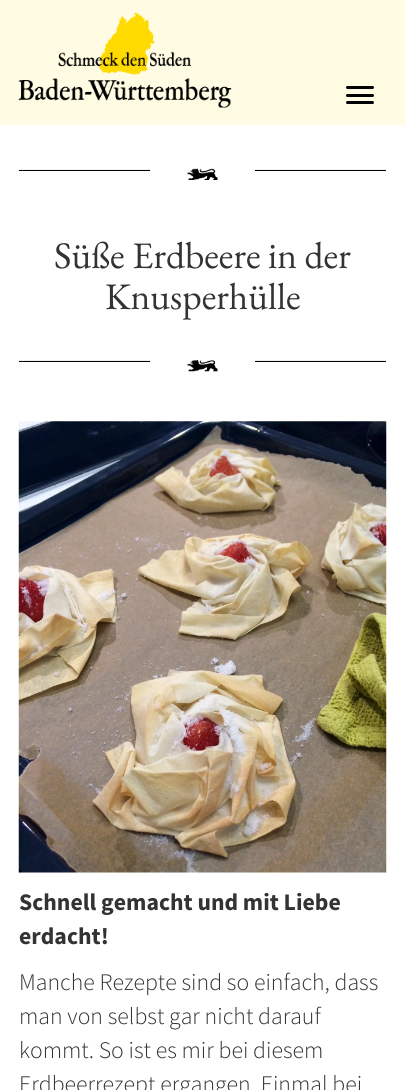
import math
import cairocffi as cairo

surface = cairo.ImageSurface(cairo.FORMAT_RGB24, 405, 1090)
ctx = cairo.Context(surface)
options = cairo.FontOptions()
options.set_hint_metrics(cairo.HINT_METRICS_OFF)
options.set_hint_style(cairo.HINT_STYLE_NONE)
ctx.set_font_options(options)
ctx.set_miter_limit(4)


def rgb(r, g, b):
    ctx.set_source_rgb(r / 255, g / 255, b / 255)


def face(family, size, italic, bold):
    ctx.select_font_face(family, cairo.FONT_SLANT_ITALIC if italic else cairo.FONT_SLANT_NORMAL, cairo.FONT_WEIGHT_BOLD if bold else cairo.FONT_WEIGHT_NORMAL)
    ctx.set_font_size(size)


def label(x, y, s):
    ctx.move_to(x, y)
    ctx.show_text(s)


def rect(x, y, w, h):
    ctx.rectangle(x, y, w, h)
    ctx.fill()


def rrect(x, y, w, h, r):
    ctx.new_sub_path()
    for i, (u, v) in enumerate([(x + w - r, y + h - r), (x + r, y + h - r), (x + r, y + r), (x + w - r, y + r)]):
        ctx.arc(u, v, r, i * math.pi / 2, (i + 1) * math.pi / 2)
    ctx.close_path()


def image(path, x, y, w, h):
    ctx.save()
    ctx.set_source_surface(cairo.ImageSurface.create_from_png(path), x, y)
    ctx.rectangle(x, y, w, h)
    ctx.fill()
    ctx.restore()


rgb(255, 252, 227)
ctx.paint()
image('image0.png', 18, 12, 214, 96)
rgb(0, 0, 0)
rrect(346, 86, 28, 3, 1.5)
ctx.fill()
rrect(346, 94, 28, 3, 1.5)
ctx.fill()
rrect(346, 101, 28, 3, 1.5)
ctx.fill()
rgb(255, 255, 255)
rect(0, 125, 405, 965)
rgb(238, 238, 238)
rect(19, 169, 131, 1)
rgb(0, 0, 0)
rect(19, 170, 131, 1)
image('image1.png', 187, 168, 31, 12)
rgb(238, 238, 238)
rect(255, 169, 131, 1)
rgb(0, 0, 0)
rect(255, 170, 131, 1)
face('EB Garamond', 37.5, 0, 0)
rgb(51, 51, 51)
label(54, 268, 'Süße Erdbeere in der')
label(105, 309, 'Knusperhülle')
rgb(238, 238, 238)
rect(19, 360, 131, 1)
rgb(0, 0, 0)
rect(19, 361, 131, 1)
image('image2.png', 187, 360, 31, 12)
rgb(238, 238, 238)
rect(255, 360, 131, 1)
rgb(0, 0, 0)
rect(255, 361, 131, 1)
image('image3.png', 18, 421, 369, 452)
face('Source Sans Pro', 23.75, 0, 1)
rgb(51, 51, 51)
label(19, 910, 'Schnell gemacht und mit Liebe')
label(19, 944, 'erdacht!')
face('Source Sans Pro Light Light', 23.75, 0, 0)
label(19, 990, 'Manche Rezepte sind so einfach, dass')
label(19, 1024, 'man von selbst gar nicht darauf')
label(19, 1058, 'kommt. So ist es mir bei diesem')
label(19, 1092, 'Erdbeerrezept ergangen. Einmal bei')
surface.write_to_png('render.png')
